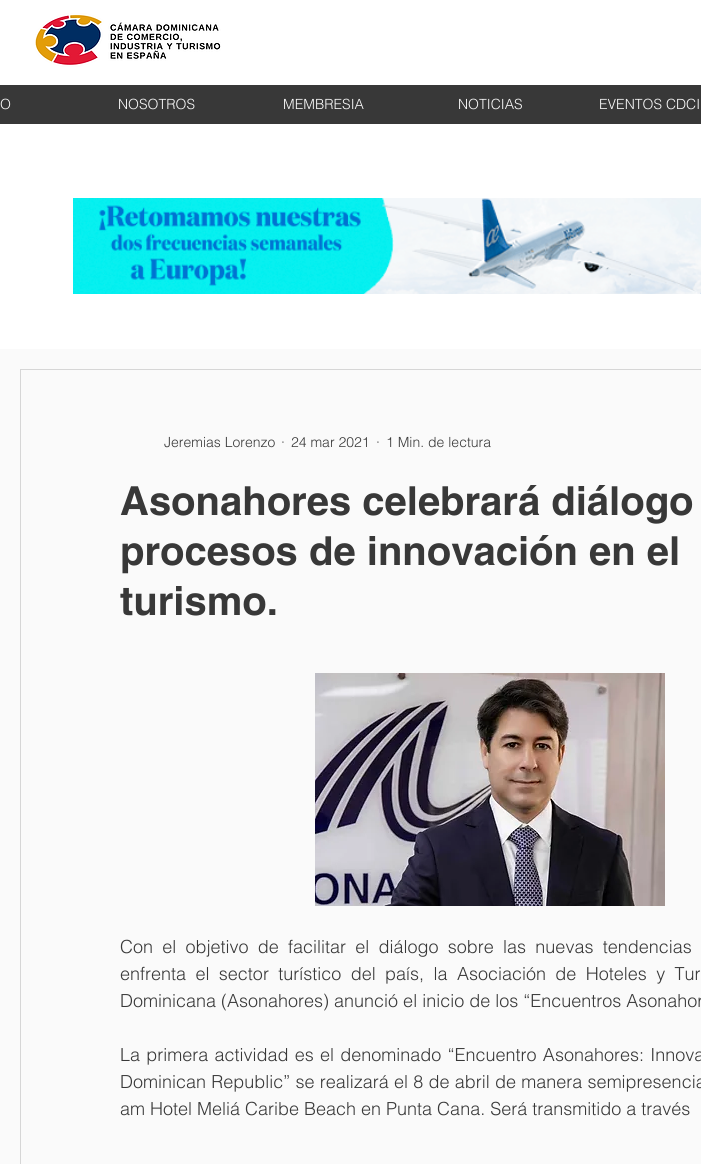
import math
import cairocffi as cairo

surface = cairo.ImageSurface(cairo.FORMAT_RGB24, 701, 1164)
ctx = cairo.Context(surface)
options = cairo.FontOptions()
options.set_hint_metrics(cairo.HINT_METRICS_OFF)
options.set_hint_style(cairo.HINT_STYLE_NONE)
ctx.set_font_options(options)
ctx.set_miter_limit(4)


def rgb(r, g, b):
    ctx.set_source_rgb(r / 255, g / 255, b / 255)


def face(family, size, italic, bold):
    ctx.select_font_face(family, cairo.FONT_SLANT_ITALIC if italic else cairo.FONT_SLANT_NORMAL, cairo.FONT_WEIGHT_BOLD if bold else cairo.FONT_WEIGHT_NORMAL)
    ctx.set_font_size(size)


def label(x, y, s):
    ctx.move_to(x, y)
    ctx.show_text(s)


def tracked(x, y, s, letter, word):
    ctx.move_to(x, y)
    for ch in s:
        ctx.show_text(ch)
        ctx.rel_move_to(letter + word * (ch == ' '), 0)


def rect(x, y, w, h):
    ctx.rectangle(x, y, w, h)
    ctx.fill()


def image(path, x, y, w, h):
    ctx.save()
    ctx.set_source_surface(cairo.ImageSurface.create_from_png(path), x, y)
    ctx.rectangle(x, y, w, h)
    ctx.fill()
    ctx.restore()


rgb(255, 255, 255)
ctx.paint()
image('image0.png', 35, 13, 186, 54)
rgb(56, 56, 56)
rect(0, 85, 701, 39)
face('helvetica Light', 14, 0, 0)
rgb(250, 250, 250)
label(0, 109, 'O')
label(118, 109, 'NOSOTROS')
label(283, 109, 'MEMBRESIA')
label(458, 109, 'NOTICIAS')
label(599, 109, 'EVENTOS CDCI')
image('image1.png', 73, 198, 628, 96)
rect(0, 349, 701, 815)
ctx.rectangle(20.5, 369.5, 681, 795)
rgb(214, 214, 214)
ctx.set_line_width(1)
ctx.stroke()
rgb(56, 56, 56)
label(164, 447, 'Jeremias Lorenzo')
label(281, 447, '·')
label(291, 447, '24 mar 2021')
label(376, 447, '·')
label(386, 447, '1 Min. de lectura')
face('helvetica', 40, 0, 1)
label(120, 515, 'Asonahores celebrará diálogo')
label(120, 565, 'procesos de innovación en el')
label(120, 615, 'turismo.')
image('image2.png', 315, 673, 350, 233)
face('helvetica Light', 18, 0, 0)
tracked(120, 953, 'Con el objetivo de facilitar el diálogo sobre las nuevas tendencias', 0, 4.25)
tracked(120, 980, 'enfrenta el sector turístico del país, la Asociación de Hoteles y Tur', 0, 4.4)
label(120, 1007, 'Dominicana (Asonahores) anunció el inicio de los “Encuentros Asonahor')
tracked(120, 1061, 'La primera actividad es el denominado “Encuentro Asonahores: Innova', 0, 1.25)
tracked(120, 1088, 'Dominican Republic” se realizará el 8 de abril de manera semipresencia', 0, 0.25)
label(120, 1115, 'am Hotel Meliá Caribe Beach en Punta Cana. Será transmitido a través')
surface.write_to_png('render.png')
